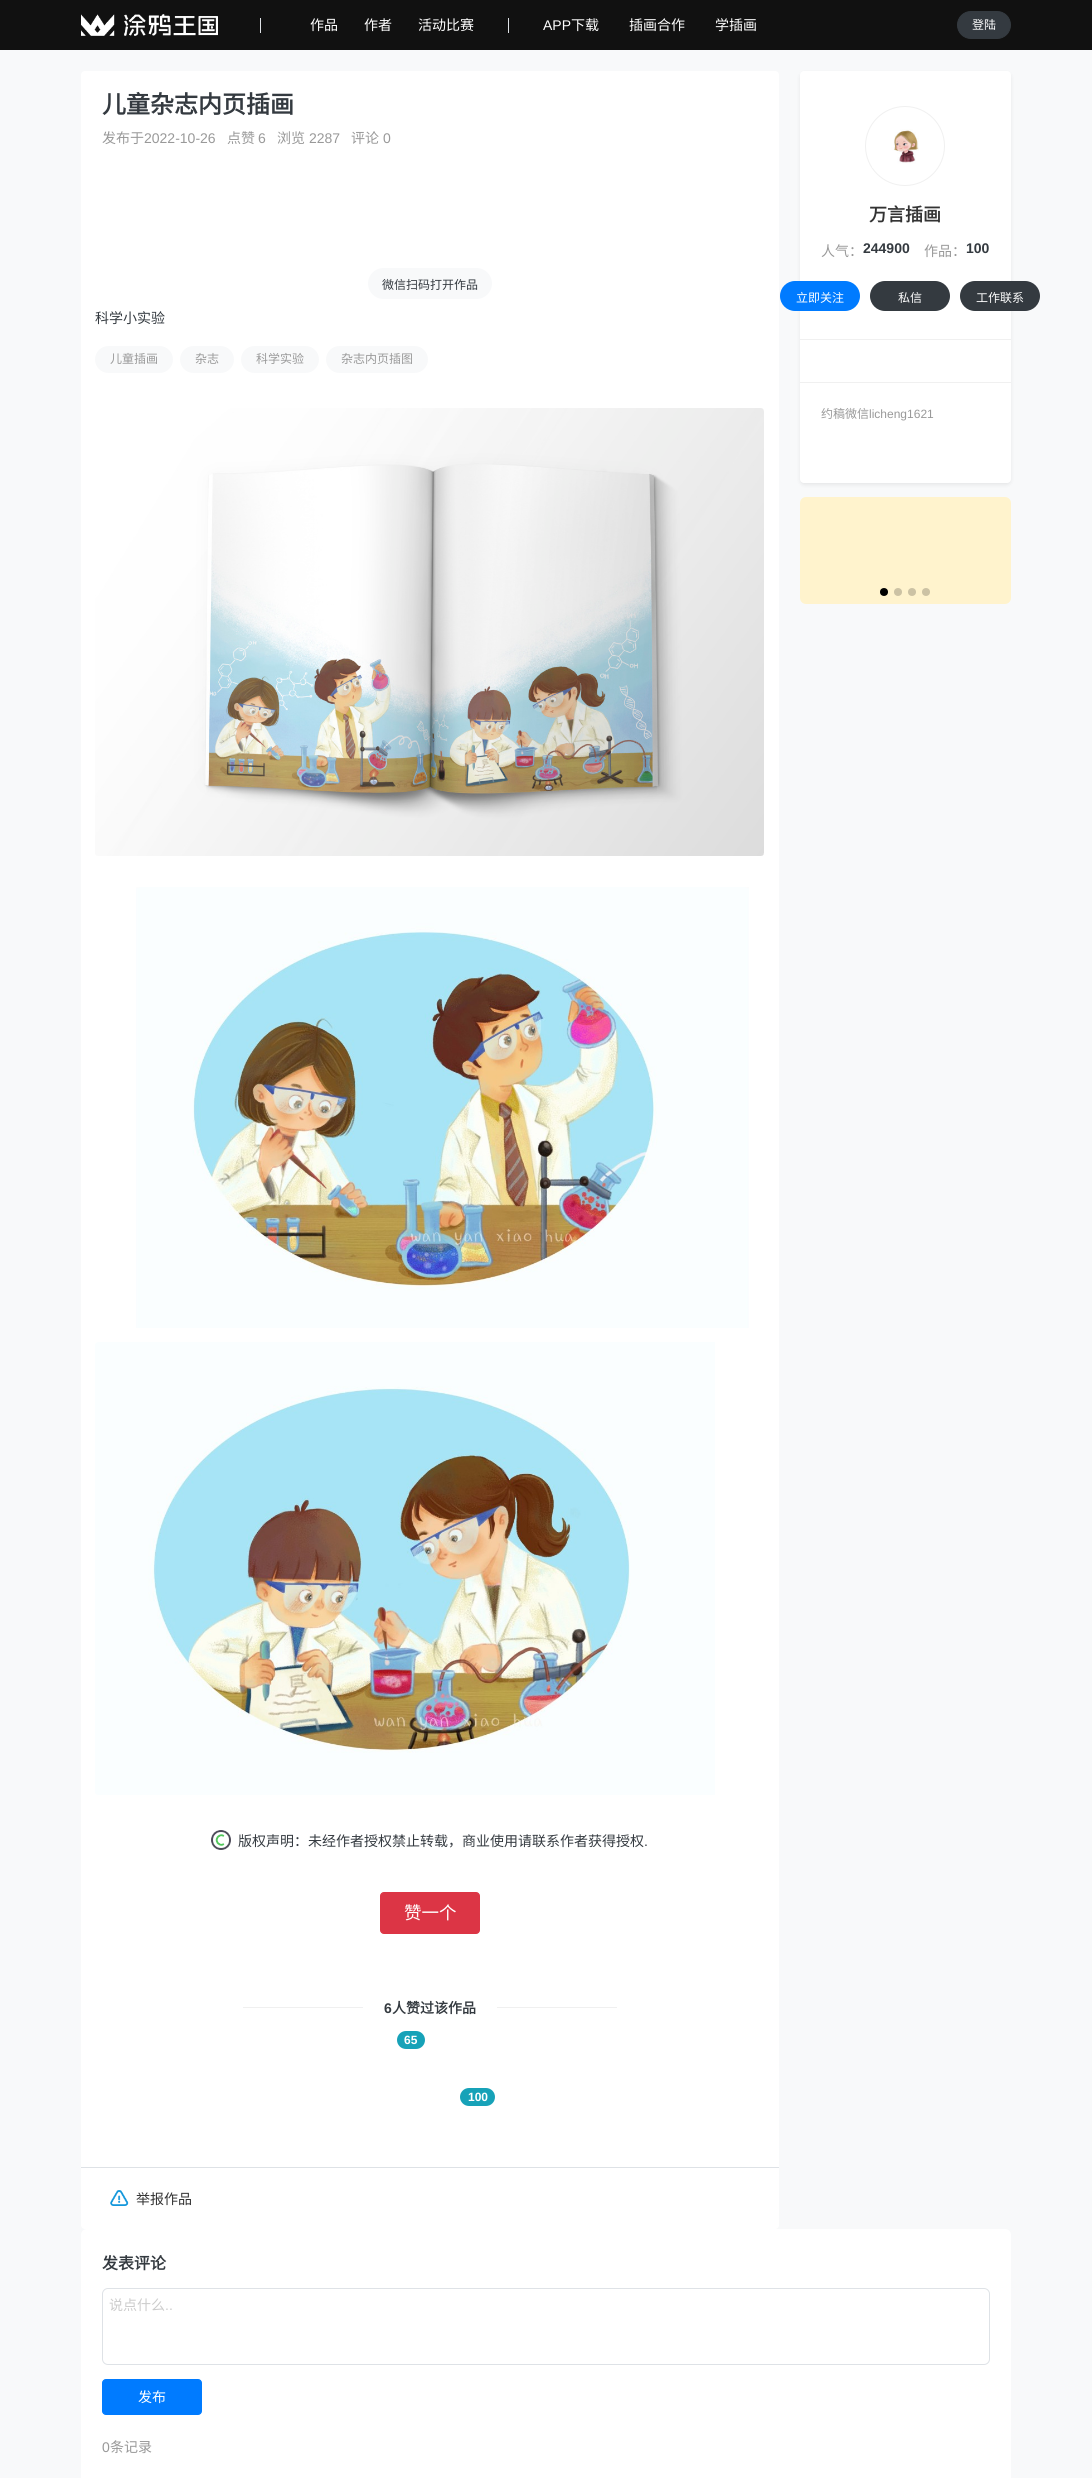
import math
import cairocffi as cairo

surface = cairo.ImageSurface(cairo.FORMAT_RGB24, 1092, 2478)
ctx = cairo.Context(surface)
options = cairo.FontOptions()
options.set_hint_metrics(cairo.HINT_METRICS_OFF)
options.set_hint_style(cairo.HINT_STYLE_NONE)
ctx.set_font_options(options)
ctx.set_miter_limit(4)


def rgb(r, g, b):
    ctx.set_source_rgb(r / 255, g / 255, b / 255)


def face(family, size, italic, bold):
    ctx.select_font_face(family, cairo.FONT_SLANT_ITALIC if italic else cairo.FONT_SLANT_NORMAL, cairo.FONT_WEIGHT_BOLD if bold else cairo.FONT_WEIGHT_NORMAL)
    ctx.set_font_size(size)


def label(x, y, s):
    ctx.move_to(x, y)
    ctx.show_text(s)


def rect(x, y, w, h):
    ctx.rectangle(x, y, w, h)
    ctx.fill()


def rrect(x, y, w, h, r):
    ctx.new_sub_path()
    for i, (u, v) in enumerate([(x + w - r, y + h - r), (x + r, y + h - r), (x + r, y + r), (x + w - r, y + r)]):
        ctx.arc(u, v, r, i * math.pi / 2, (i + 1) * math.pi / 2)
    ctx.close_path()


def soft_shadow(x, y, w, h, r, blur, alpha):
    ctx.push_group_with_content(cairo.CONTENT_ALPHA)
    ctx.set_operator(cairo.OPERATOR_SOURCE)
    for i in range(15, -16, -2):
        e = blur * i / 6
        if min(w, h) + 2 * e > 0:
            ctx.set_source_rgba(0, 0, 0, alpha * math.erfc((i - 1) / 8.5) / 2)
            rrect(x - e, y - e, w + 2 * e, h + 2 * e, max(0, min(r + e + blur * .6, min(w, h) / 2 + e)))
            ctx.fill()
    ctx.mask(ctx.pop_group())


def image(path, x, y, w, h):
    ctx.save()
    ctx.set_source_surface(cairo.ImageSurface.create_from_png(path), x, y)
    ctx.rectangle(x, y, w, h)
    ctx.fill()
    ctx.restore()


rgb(248, 249, 250)
ctx.paint()
rgb(17, 17, 17)
rect(0, 0, 1092, 50)
image('image0.png', 81, 14, 137, 22)
rgb(222, 226, 230)
rect(260, 18, 1, 15)
face('Noto Sans CJK SC', 14, 0, 0)
rgb(255, 255, 255)
label(310, 30, '作品')
label(364, 30, '作者')
label(418, 30, '活动比赛')
rgb(222, 226, 230)
rect(508, 18, 1, 15)
face('Liberation Sans', 14, 0, 0)
rgb(255, 255, 255)
label(543, 30, 'APP')
face('Noto Sans CJK SC', 14, 0, 0)
label(571, 30, '下载')
label(629, 30, '插画合作')
label(715, 30, '学插画')
rgb(52, 58, 64)
rrect(957.5, 11.5, 53, 27, 13.5)
ctx.fill_preserve()
ctx.set_line_width(1)
ctx.stroke()
face('Noto Sans CJK SC', 12, 0, 0)
rgb(255, 255, 255)
label(972, 29, '登陆')
rrect(81, 71, 698, 2158, 4)
ctx.fill()
face('Noto Sans CJK SC', 24, 0, 1)
rgb(52, 58, 64)
label(102, 113, '儿童杂志内页插画')
face('Noto Sans CJK SC', 14, 0, 0)
rgb(153, 153, 153)
label(102, 143, '发布于')
face('Liberation Sans', 14, 0, 0)
label(144, 143, '2022-10-26')
face('Noto Sans CJK SC', 14, 0, 0)
label(227, 143, '点赞')
face('Liberation Sans', 14, 0, 0)
label(258, 143, '6')
face('Noto Sans CJK SC', 14, 0, 0)
label(277, 143, '浏览')
face('Liberation Sans', 14, 0, 0)
label(309, 143, '2287')
face('Noto Sans CJK SC', 14, 0, 0)
label(351, 143, '评论')
face('Liberation Sans', 14, 0, 0)
label(383, 143, '0')
rgb(248, 249, 250)
rrect(368, 268, 124, 31, 15.5)
ctx.fill()
face('Noto Sans CJK SC', 12, 0, 0)
rgb(52, 58, 64)
label(382, 289, '微信扫码打开作品')
face('Noto Sans CJK SC', 14, 0, 0)
label(95, 323, '科学小实验')
rgb(248, 249, 250)
rrect(95, 346, 78, 27, 13.5)
ctx.fill()
face('Noto Sans CJK SC', 12, 0, 0)
rgb(153, 153, 153)
label(110, 363, '儿童插画')
rgb(248, 249, 250)
rrect(180, 346, 54, 27, 13.5)
ctx.fill()
rgb(153, 153, 153)
label(195, 363, '杂志')
rgb(248, 249, 250)
rrect(241, 346, 78, 27, 13.5)
ctx.fill()
rgb(153, 153, 153)
label(256, 363, '科学实验')
rgb(248, 249, 250)
rrect(326, 346, 102, 27, 13.5)
ctx.fill()
rgb(153, 153, 153)
label(341, 363, '杂志内页插图')
image('image1.png', 95, 408, 669, 448)
image('image2.png', 136, 887, 613, 441)
image('image3.png', 95, 1342, 620, 453)
image('image4.png', 211, 1830, 20, 20)
face('Noto Sans CJK SC', 14, 0, 0)
rgb(52, 58, 64)
label(238, 1846, '版权声明：未经作者授权禁止转载，商业使用请联系作者获得授权')
face('Liberation Sans', 14, 0, 0)
label(644, 1846, '.')
rgb(220, 53, 69)
rrect(380.5, 1892.5, 99, 41, 3.5)
ctx.fill_preserve()
ctx.stroke()
face('Noto Sans CJK SC', 17.5, 0, 0)
rgb(255, 255, 255)
label(404, 1919, '赞一个')
rgb(240, 240, 240)
rect(243, 2007, 120, 1)
face('Liberation Sans', 14, 0, 1)
rgb(52, 58, 64)
label(384, 2013, '6')
face('Noto Sans CJK SC', 14, 0, 1)
label(392, 2013, '人赞过该作品')
rgb(240, 240, 240)
rect(497, 2007, 120, 1)
rgb(23, 162, 184)
rrect(397, 2031, 28, 18, 9)
ctx.fill()
face('Liberation Sans', 12, 0, 1)
rgb(255, 255, 255)
label(404, 2044, '65')
rgb(23, 162, 184)
rrect(460, 2088, 35, 18, 9)
ctx.fill()
rgb(255, 255, 255)
label(468, 2101, '100')
rgb(222, 226, 230)
rect(81, 2167, 698, 1)
image('image5.png', 110, 2190, 19, 16)
face('Noto Sans CJK SC', 14, 0, 0)
rgb(51, 51, 51)
label(136, 2204, '举报作品')
rgb(0, 0, 0)
soft_shadow(800, 73, 211, 412, 4, 2, 0.07)
rgb(255, 255, 255)
rrect(800, 71, 211, 412, 4)
ctx.fill()
ctx.arc(905, 146, 39.5, 0, 2 * math.pi)
rgb(240, 240, 240)
ctx.stroke()
image('image6.png', 872, 129, 47, 39)
face('Noto Sans CJK SC', 18, 0, 1)
rgb(51, 51, 51)
label(869, 221, '万言插画')
face('Noto Sans CJK SC', 14, 0, 0)
rgb(153, 153, 153)
label(821, 256, '人气：')
face('Liberation Sans', 14, 0, 1)
rgb(52, 58, 64)
label(863, 253, '244900')
face('Noto Sans CJK SC', 14, 0, 0)
rgb(153, 153, 153)
label(924, 256, '作品：')
face('Liberation Sans', 14, 0, 1)
rgb(52, 58, 64)
label(966, 253, '100')
rgb(0, 123, 255)
rrect(780, 281, 80, 30, 15)
ctx.fill()
face('Noto Sans CJK SC', 12, 0, 0)
rgb(255, 255, 255)
label(796, 302, '立即关注')
rgb(52, 58, 64)
rrect(870, 281, 80, 30, 15)
ctx.fill()
rgb(255, 255, 255)
label(898, 302, '私信')
rgb(52, 58, 64)
rrect(960, 281, 80, 30, 15)
ctx.fill()
rgb(255, 255, 255)
label(976, 302, '工作联系')
rgb(240, 240, 240)
rect(800, 339, 211, 1)
rect(800, 382, 211, 1)
rgb(153, 153, 153)
label(821, 418, '约稿微信')
face('Liberation Sans', 12, 0, 0)
label(869, 418, 'licheng1621')
rgb(255, 243, 205)
rrect(800, 497, 211, 107, 6)
ctx.fill()
rgb(0, 0, 0)
ctx.arc(884, 592, 4, 0, 2 * math.pi)
ctx.fill()
rgb(204, 194, 164)
ctx.arc(898, 592, 4, 0, 2 * math.pi)
ctx.fill()
ctx.arc(912, 592, 4, 0, 2 * math.pi)
ctx.fill()
ctx.arc(926, 592, 4, 0, 2 * math.pi)
ctx.fill()
rgb(255, 255, 255)
rrect(81, 2229, 930, 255, 6)
ctx.fill()
face('Noto Sans CJK SC', 16, 0, 1)
rgb(52, 58, 64)
label(102, 2269, '发表评论')
rrect(102.5, 2288.5, 887, 76, 5.5)
rgb(222, 226, 230)
ctx.stroke()
face('Noto Sans CJK SC', 14, 0, 0)
rgb(204, 204, 204)
label(109, 2310, '说点什么')
face('Liberation Sans', 14, 0, 0)
label(165, 2310, '..')
rgb(0, 123, 255)
rrect(102.5, 2379.5, 99, 35, 3.5)
ctx.fill_preserve()
ctx.stroke()
face('Noto Sans CJK SC', 14, 0, 0)
rgb(255, 255, 255)
label(138, 2402, '发布')
face('Liberation Sans', 14, 0, 0)
rgb(153, 153, 153)
label(102, 2452, '0')
face('Noto Sans CJK SC', 14, 0, 0)
label(110, 2452, '条记录')
surface.write_to_png('render.png')
